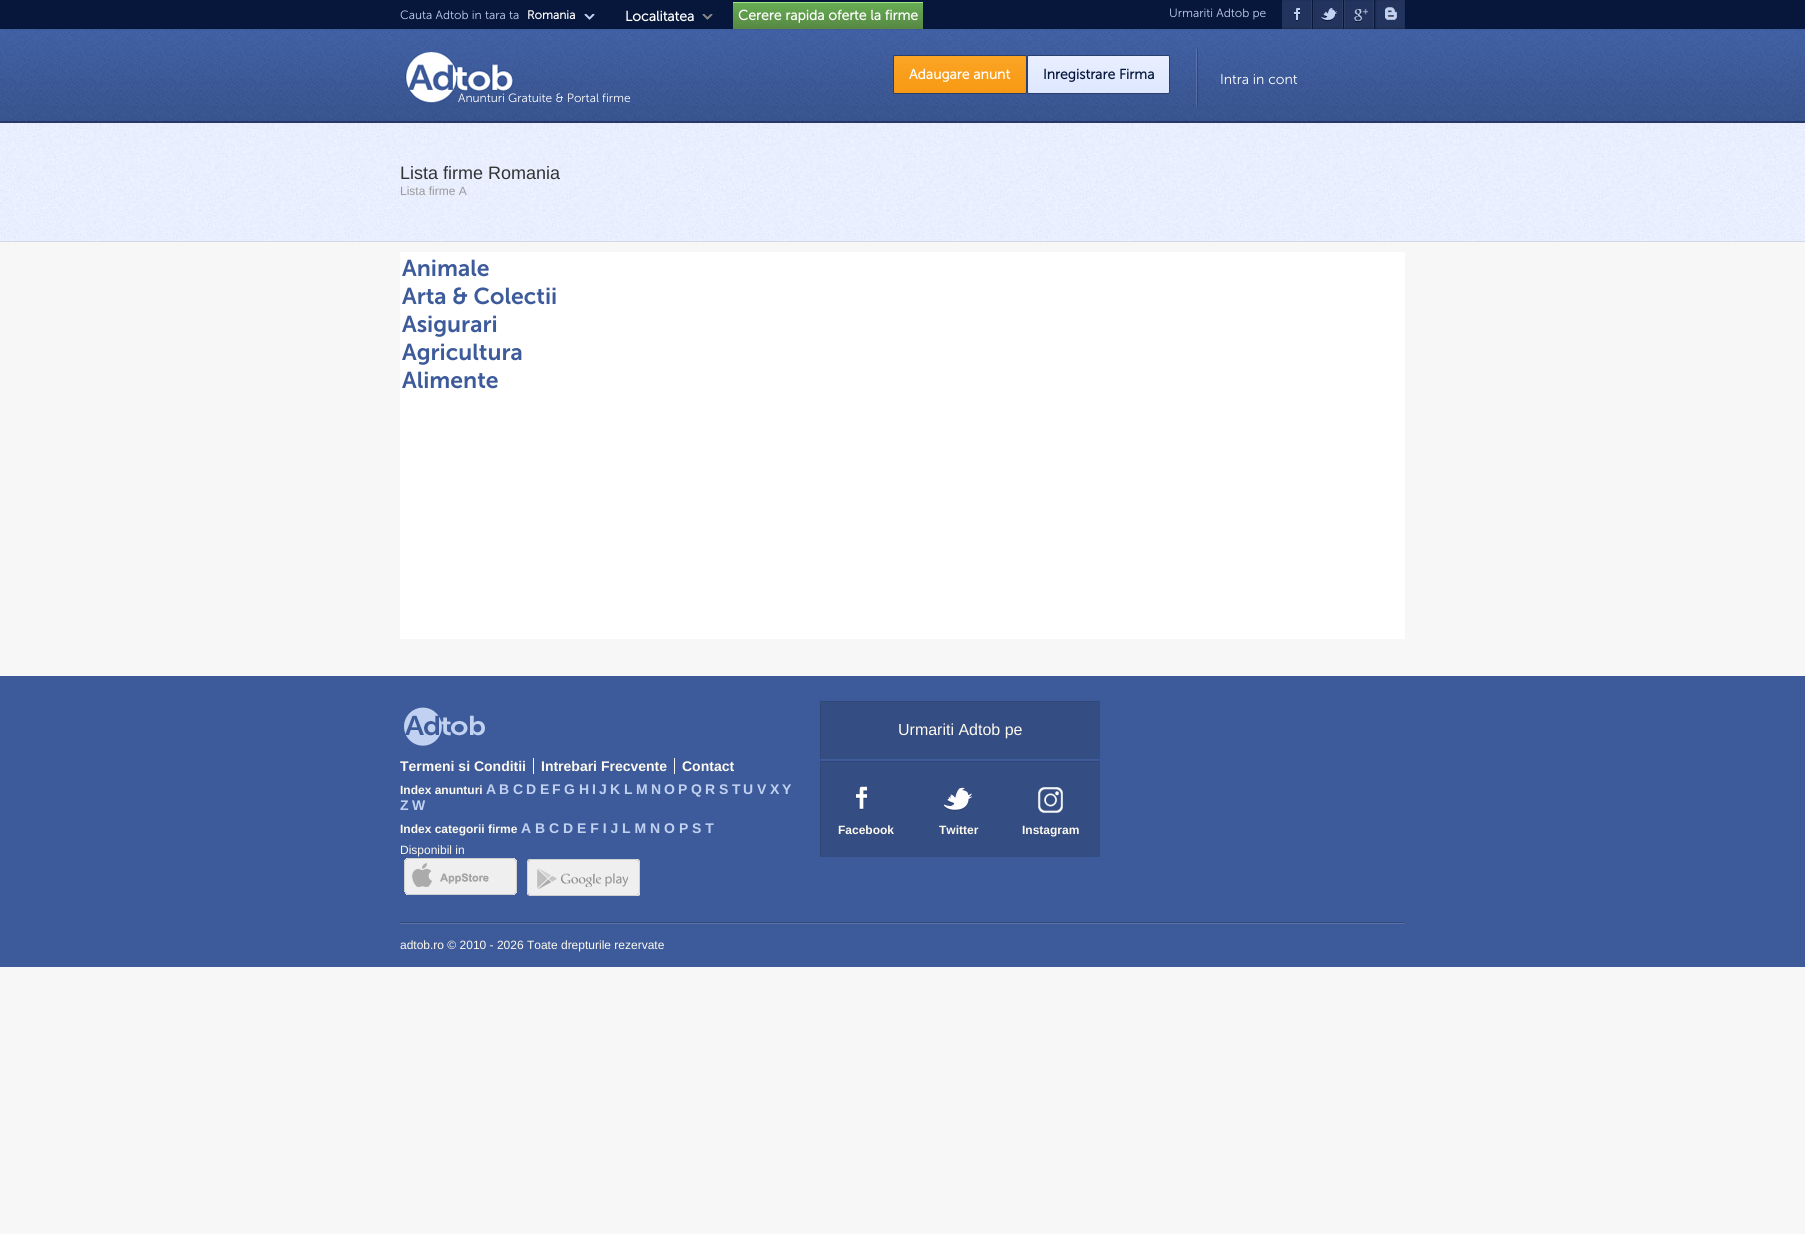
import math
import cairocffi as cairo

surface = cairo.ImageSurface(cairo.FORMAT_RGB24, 1805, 1234)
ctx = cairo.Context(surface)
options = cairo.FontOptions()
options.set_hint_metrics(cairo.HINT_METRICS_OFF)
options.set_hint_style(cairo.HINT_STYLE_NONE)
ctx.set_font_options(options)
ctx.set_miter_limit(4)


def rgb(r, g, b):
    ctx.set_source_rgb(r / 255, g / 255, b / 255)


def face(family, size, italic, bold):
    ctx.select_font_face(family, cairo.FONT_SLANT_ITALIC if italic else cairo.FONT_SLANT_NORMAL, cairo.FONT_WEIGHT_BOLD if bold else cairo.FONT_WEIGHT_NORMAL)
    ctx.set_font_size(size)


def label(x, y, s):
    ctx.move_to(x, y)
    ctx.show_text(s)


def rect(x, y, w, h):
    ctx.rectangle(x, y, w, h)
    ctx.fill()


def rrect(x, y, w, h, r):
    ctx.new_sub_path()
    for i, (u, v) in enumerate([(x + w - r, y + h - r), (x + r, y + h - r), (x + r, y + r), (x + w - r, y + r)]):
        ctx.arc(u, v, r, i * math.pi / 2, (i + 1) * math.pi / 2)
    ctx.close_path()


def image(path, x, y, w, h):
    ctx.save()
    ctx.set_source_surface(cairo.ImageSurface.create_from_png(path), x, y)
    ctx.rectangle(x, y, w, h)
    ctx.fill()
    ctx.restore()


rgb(247, 247, 247)
ctx.paint()
image('image0.png', 0, 0, 1805, 123)
face('Museo Sans Light', 12, 0, 0)
rgb(193, 209, 242)
label(400, 19, 'Cauta Adtob in tara ta')
face('Museo Sans', 12, 0, 1)
rgb(255, 255, 255)
label(527, 19, 'Romania')
image('image1.png', 584, 14, 11, 6)
face('Museo Sans', 14, 0, 1)
label(625, 21, 'Localitatea')
image('image2.png', 702, 14, 11, 6)
gradient = cairo.LinearGradient(828, 2, 828, 29)
gradient.add_color_stop_rgba(0, 0.404, 0.682, 0.333, 1)
gradient.add_color_stop_rgba(1, 0.341, 0.533, 0.263, 1)
ctx.set_source(gradient)
rect(733, 3, 190, 26)
rgb(255, 255, 255)
label(738, 20, 'Cerere rapida oferte la firme')
rgb(164, 227, 136)
rect(733, 2, 190, 1)
face('Museo Sans Light', 12, 0, 0)
rgb(193, 209, 242)
label(1169, 17, 'Urmariti Adtob pe')
image('image3.png', 1282, 0, 30, 29)
image('image4.png', 1313, 0, 30, 29)
image('image5.png', 1344, 0, 30, 29)
image('image6.png', 1375, 0, 30, 29)
image('image7.png', 404, 50, 110, 56)
rgb(255, 255, 255)
label(458, 102, 'Anunturi Gratuite & Portal firme')
ctx.save()
rrect(893, 55, 134, 39, 2)
ctx.clip()
gradient = cairo.LinearGradient(960, 56, 960, 93)
gradient.add_color_stop_rgba(0, 0.988, 0.643, 0.149, 1)
gradient.add_color_stop_rgba(1, 0.969, 0.6, 0.071, 1)
ctx.set_source(gradient)
rect(893, 56, 134, 37)
ctx.restore()
rrect(893.5, 55.5, 133, 38, 1.5)
rgb(42, 63, 108)
ctx.set_line_width(1)
ctx.stroke()
face('Museo Sans', 14, 0, 1)
rgb(255, 255, 255)
label(909, 79, 'Adaugare anunt')
ctx.save()
rrect(1027, 55, 143, 39, 2)
ctx.clip()
gradient = cairo.LinearGradient(1099, 56, 1099, 93)
gradient.add_color_stop_rgba(0, 0.914, 0.937, 1, 1)
gradient.add_color_stop_rgba(1, 0.867, 0.906, 1, 1)
ctx.set_source(gradient)
rect(1027, 56, 143, 37)
ctx.restore()
rrect(1027.5, 55.5, 142, 38, 1.5)
rgb(42, 63, 108)
ctx.stroke()
rgb(6, 23, 60)
label(1043, 79, 'Inregistrare Firma')
image('image8.png', 1196, 46, 2, 62)
face('Museo Sans Light', 14, 0, 0)
rgb(255, 255, 255)
label(1220, 84, 'Intra in cont')
image('image9.png', 0, 123, 1805, 118)
rgb(210, 216, 230)
rect(0, 241, 1805, 1)
face('Liberation Sans', 18, 0, 0)
rgb(51, 51, 51)
label(400, 179, 'Lista firme Romania')
face('Liberation Sans', 12, 0, 0)
rgb(153, 153, 153)
label(400, 195, 'Lista firme A')
rgb(255, 255, 255)
rect(400, 252, 1005, 387)
face('Museo Sans SemiBold', 23, 0, 0)
rgb(61, 91, 154)
label(402, 276, 'Animale')
label(402, 304, 'Arta & Colectii')
label(402, 332, 'Asigurari')
label(402, 360, 'Agricultura')
label(402, 388, 'Alimente')
rect(0, 677, 1805, 290)
rgb(59, 89, 152)
rect(0, 676, 1805, 1)
rgb(88, 114, 168)
rect(400, 923, 1005, 1)
rgb(50, 74, 126)
rect(400, 922, 1005, 1)
image('image10.png', 404, 707, 81, 39)
face('Liberation Sans', 14, 0, 1)
rgb(253, 249, 238)
label(400, 771, 'Termeni si Conditii')
rect(533, 758, 1, 16)
label(541, 771, 'Intrebari Frecvente')
rect(674, 758, 1, 16)
label(682, 771, 'Contact')
face('Liberation Sans', 12, 0, 1)
label(400, 794, 'Index anunturi')
face('Liberation Sans', 14, 0, 1)
rgb(193, 209, 242)
label(486, 794, 'A')
label(499, 794, 'B')
label(513, 794, 'C')
label(526, 794, 'D')
label(540, 794, 'E')
label(552, 794, 'F')
label(564, 794, 'G')
label(579, 794, 'H')
label(592, 794, 'I')
label(599, 794, 'J')
label(610, 794, 'K')
label(624, 794, 'L')
label(636, 794, 'M')
label(651, 794, 'N')
label(664, 794, 'O')
label(678, 794, 'P')
label(691, 794, 'Q')
label(705, 794, 'R')
label(719, 794, 'S')
label(732, 794, 'T')
label(743, 794, 'U')
label(757, 794, 'V')
label(770, 794, 'X')
label(782, 794, 'Y')
label(400, 810, 'Z')
label(412, 810, 'W')
face('Liberation Sans', 12, 0, 1)
rgb(253, 249, 238)
label(400, 833, 'Index categorii firme')
face('Liberation Sans', 14, 0, 1)
rgb(193, 209, 242)
label(521, 833, 'A B C D E F I J L M N O P S T')
face('Liberation Sans', 12, 0, 0)
rgb(253, 249, 238)
label(400, 854, 'Disponibil in')
image('image11.png', 404, 858, 113, 37)
image('image12.png', 527, 859, 113, 37)
rgb(52, 77, 131)
rect(821, 702, 279, 57)
ctx.save()
ctx.rectangle(820, 701, 280, 58)
ctx.clip()
rgb(49, 71, 120)
ctx.set_fill_rule(cairo.FILL_RULE_EVEN_ODD)
ctx.new_path()
ctx.move_to(721, 602)
ctx.line_to(1199, 602)
ctx.line_to(1199, 858)
ctx.line_to(721, 858)
ctx.close_path()
ctx.move_to(821, 702)
ctx.line_to(1101, 702)
ctx.line_to(1101, 760)
ctx.line_to(821, 760)
ctx.close_path()
ctx.fill()
ctx.restore()
face('Liberation Sans', 16, 0, 0)
rgb(253, 249, 238)
label(898, 735, 'Urmariti Adtob pe')
rgb(52, 77, 131)
rect(821, 762, 279, 95)
ctx.save()
ctx.rectangle(820, 761, 280, 96)
ctx.clip()
rgb(49, 71, 120)
ctx.set_fill_rule(cairo.FILL_RULE_EVEN_ODD)
ctx.new_path()
ctx.move_to(721, 662)
ctx.line_to(1199, 662)
ctx.line_to(1199, 956)
ctx.line_to(721, 956)
ctx.close_path()
ctx.move_to(821, 762)
ctx.line_to(1101, 762)
ctx.line_to(1101, 858)
ctx.line_to(821, 858)
ctx.close_path()
ctx.fill()
ctx.restore()
image('image13.png', 856, 786, 11, 24)
face('Liberation Sans', 12, 0, 1)
rgb(253, 249, 238)
label(838, 834, 'Facebook')
image('image14.png', 944, 787, 28, 24)
label(939, 834, 'Twitter')
image('image15.png', 1038, 787, 25, 26)
label(1022, 834, 'Instagram')
face('Liberation Sans', 12, 0, 0)
label(400, 949, 'adtob.ro © 2010 - 2026 Toate drepturile rezervate')
surface.write_to_png('render.png')
